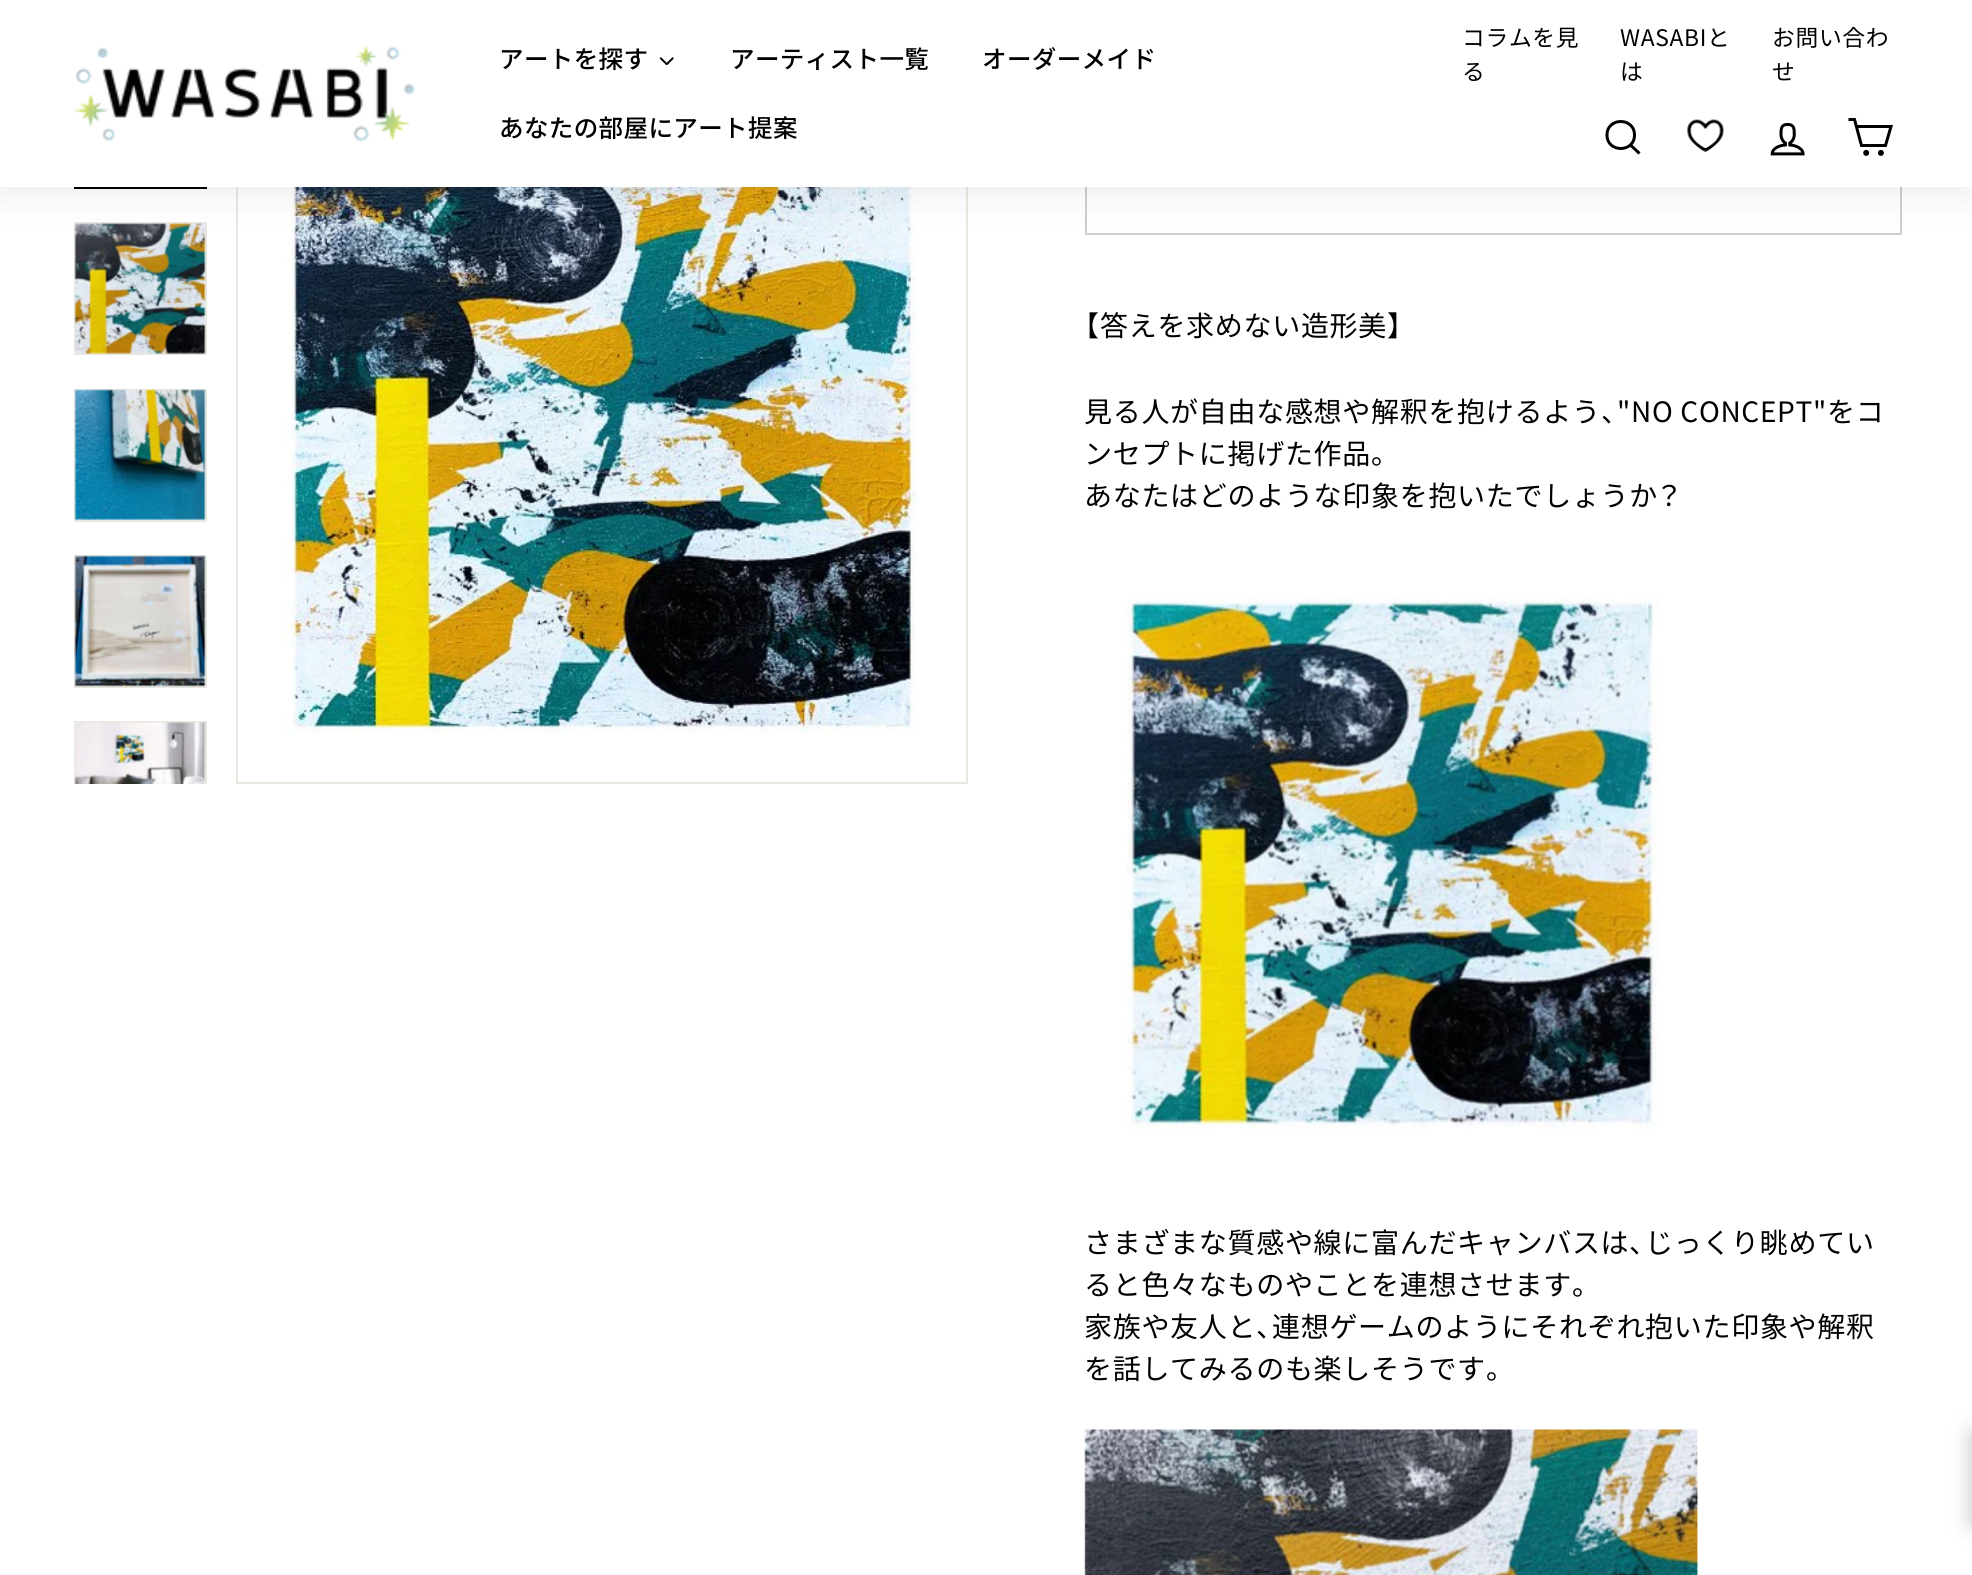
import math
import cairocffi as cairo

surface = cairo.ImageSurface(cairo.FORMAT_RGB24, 1972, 1575)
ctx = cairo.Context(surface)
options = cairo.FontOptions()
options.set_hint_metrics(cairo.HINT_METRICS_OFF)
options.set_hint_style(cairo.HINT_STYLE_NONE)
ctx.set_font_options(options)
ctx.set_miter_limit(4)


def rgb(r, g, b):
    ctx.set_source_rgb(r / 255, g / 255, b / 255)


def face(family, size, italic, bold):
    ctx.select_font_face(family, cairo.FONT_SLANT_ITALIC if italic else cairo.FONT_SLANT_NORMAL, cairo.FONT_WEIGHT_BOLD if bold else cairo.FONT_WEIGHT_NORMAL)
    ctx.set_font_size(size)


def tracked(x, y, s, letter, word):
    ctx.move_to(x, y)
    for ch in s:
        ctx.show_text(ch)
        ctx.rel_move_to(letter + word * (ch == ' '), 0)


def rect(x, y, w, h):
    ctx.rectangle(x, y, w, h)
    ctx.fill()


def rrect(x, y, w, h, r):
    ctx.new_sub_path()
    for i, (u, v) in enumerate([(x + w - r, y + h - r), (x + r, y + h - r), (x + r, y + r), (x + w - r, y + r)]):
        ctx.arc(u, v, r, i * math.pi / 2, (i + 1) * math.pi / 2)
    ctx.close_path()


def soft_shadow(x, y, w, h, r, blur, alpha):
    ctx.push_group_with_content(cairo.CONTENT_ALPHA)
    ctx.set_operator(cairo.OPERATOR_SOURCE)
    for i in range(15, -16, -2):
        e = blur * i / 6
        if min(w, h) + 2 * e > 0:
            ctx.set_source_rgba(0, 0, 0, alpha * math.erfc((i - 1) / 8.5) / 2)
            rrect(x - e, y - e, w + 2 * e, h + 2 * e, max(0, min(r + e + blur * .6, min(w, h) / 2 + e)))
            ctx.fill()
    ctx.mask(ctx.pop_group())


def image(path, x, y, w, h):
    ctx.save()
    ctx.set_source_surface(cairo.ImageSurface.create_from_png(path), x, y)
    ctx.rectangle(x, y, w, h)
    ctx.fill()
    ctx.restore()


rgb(255, 255, 255)
ctx.paint()
ctx.rectangle(76, 58, 129, 129)
rgb(0, 0, 0)
ctx.set_line_width(4)
ctx.stroke()
ctx.rectangle(75, 223, 131, 131)
rgb(232, 232, 225)
ctx.set_line_width(2)
ctx.stroke()
image('image4.png', 74, 223, 132, 131)
ctx.rectangle(237, 54, 730, 729)
ctx.stroke()
image('image8.png', 281, 187, 637, 547)
ctx.rectangle(1086, -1, 815, 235)
rgb(206, 206, 206)
ctx.stroke()
rgb(0, 0, 0)
soft_shadow(0, 0, 1972, 187, 0, 22, 0.1)
rgb(255, 255, 255)
rect(0, 0, 1972, 187)
image('image0.png', 74, 45, 341, 97)
face('Noto Sans JP Medium', 24.5, 0, 0)
rgb(0, 0, 0)
tracked(499, 68, 'アートを探す', 0.4, 0)
image('image1.png', 659, 57, 15, 9)
tracked(730, 68, 'アーティスト一覧', 0.4, 0)
tracked(982, 68, 'オーダーメイド', 0.4, 0)
tracked(499, 137, 'あなたの部屋にアート提案', 0.4, 0)
face('Noto Sans JP', 22.75, 0, 0)
tracked(1462, 46, 'コラムを見', 0.7, 0)
tracked(1462, 80, 'る', 0.7, 0)
tracked(1620, 46, 'WASABIと', 0.7, 0)
tracked(1620, 80, 'は', 0.7, 0)
tracked(1772, 46, 'お問い合わ', 0.7, 0)
tracked(1772, 80, 'せ', 0.7, 0)
ctx.new_path()
ctx.move_to(1634.5, 135)
ctx.curve_to(1634.5, 153, 1607, 153, 1607, 135)
ctx.curve_to(1607, 117, 1634.5, 117, 1634.5, 135)
ctx.close_path()
ctx.move_to(1639.5, 153.5)
ctx.line_to(1630.5, 145)
ctx.set_line_width(3)
ctx.stroke()
image('image2.png', 1687, 119, 37, 33)
image('image3.png', 1770, 122, 35, 34)
ctx.new_path()
ctx.move_to(1856.5, 126.5)
ctx.line_to(1891, 126.5)
ctx.line_to(1885.5, 145.5)
ctx.line_to(1861.5, 145.5)
ctx.line_to(1854.5, 119.5)
ctx.line_to(1848.5, 119.5)
ctx.stroke()
ctx.arc(1866.2, 152.9, 1.5, 0, 2 * math.pi)
ctx.stroke()
ctx.arc(1880.9, 152.9, 1.5, 0, 2 * math.pi)
ctx.stroke()
ctx.rectangle(75, 390, 131, 131)
rgb(232, 232, 225)
ctx.set_line_width(2)
ctx.stroke()
image('image5.png', 74, 389, 132, 131)
ctx.rectangle(75, 556, 131, 131)
ctx.stroke()
image('image6.png', 74, 555, 132, 132)
ctx.save()
ctx.rectangle(74, 721, 133, 63)
ctx.clip()
ctx.rectangle(75, 722, 131, 131)
ctx.stroke()
ctx.restore()
image('image7.png', 74, 721, 132, 63)
face('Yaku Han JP', 28, 0, 0)
rgb(0, 0, 0)
tracked(1084, 336, '【', 0.7, 0)
face('Noto Sans JP', 28, 0, 0)
tracked(1100, 336, '答えを求めない造形美', 0.7, 0)
face('Yaku Han JP', 28, 0, 0)
tracked(1387, 336, '】', 0.7, 0)
face('Noto Sans JP', 28, 0, 0)
tracked(1084, 422, '見る人が自由な感想や解釈を抱けるよう', 0.7, 0)
face('Yaku Han JP', 28, 0, 0)
tracked(1601, 422, '、', 0.7, 0)
face('Noto Sans JP', 28, 0, 0)
tracked(1617, 422, '"NO CONCEPT"をコ', 0.7, 0)
tracked(1084, 464, 'ンセプトに掲げた作品', 0.7, 0)
face('Yaku Han JP', 28, 0, 0)
tracked(1371, 464, '。', 0.7, 0)
face('Noto Sans JP', 28, 0, 0)
tracked(1084, 506, 'あなたはどのような印象を抱いたでしょうか', 0.7, 0)
face('Yaku Han JP', 28, 0, 0)
tracked(1658, 506, '？', 0.7, 0)
image('image9.png', 1126, 598, 533, 532)
face('Noto Sans JP', 28, 0, 0)
tracked(1084, 1253, 'さまざまな質感や線に富んだキャンバスは', 0.7, 0)
face('Yaku Han JP', 28, 0, 0)
tracked(1629, 1253, '、', 0.7, 0)
face('Noto Sans JP', 28, 0, 0)
tracked(1645, 1253, 'じっくり眺めてい', 0.7, 0)
tracked(1084, 1295, 'ると色々なものやことを連想させます', 0.7, 0)
face('Yaku Han JP', 28, 0, 0)
tracked(1572, 1295, '。', 0.7, 0)
face('Noto Sans JP', 28, 0, 0)
tracked(1084, 1337, '家族や友人と', 0.7, 0)
face('Yaku Han JP', 28, 0, 0)
tracked(1256, 1337, '、', 0.7, 0)
face('Noto Sans JP', 28, 0, 0)
tracked(1272, 1337, '連想ゲームのようにそれぞれ抱いた印象や解釈', 0.7, 0)
tracked(1084, 1379, 'を話してみるのも楽しそうです', 0.7, 0)
face('Yaku Han JP', 28, 0, 0)
tracked(1486, 1379, '。', 0.7, 0)
image('image10.png', 1084, 1429, 614, 146)
rgb(117, 117, 117)
soft_shadow(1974, 1435, 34, 88, 0, 12, 0.5)
surface.write_to_png('render.png')
